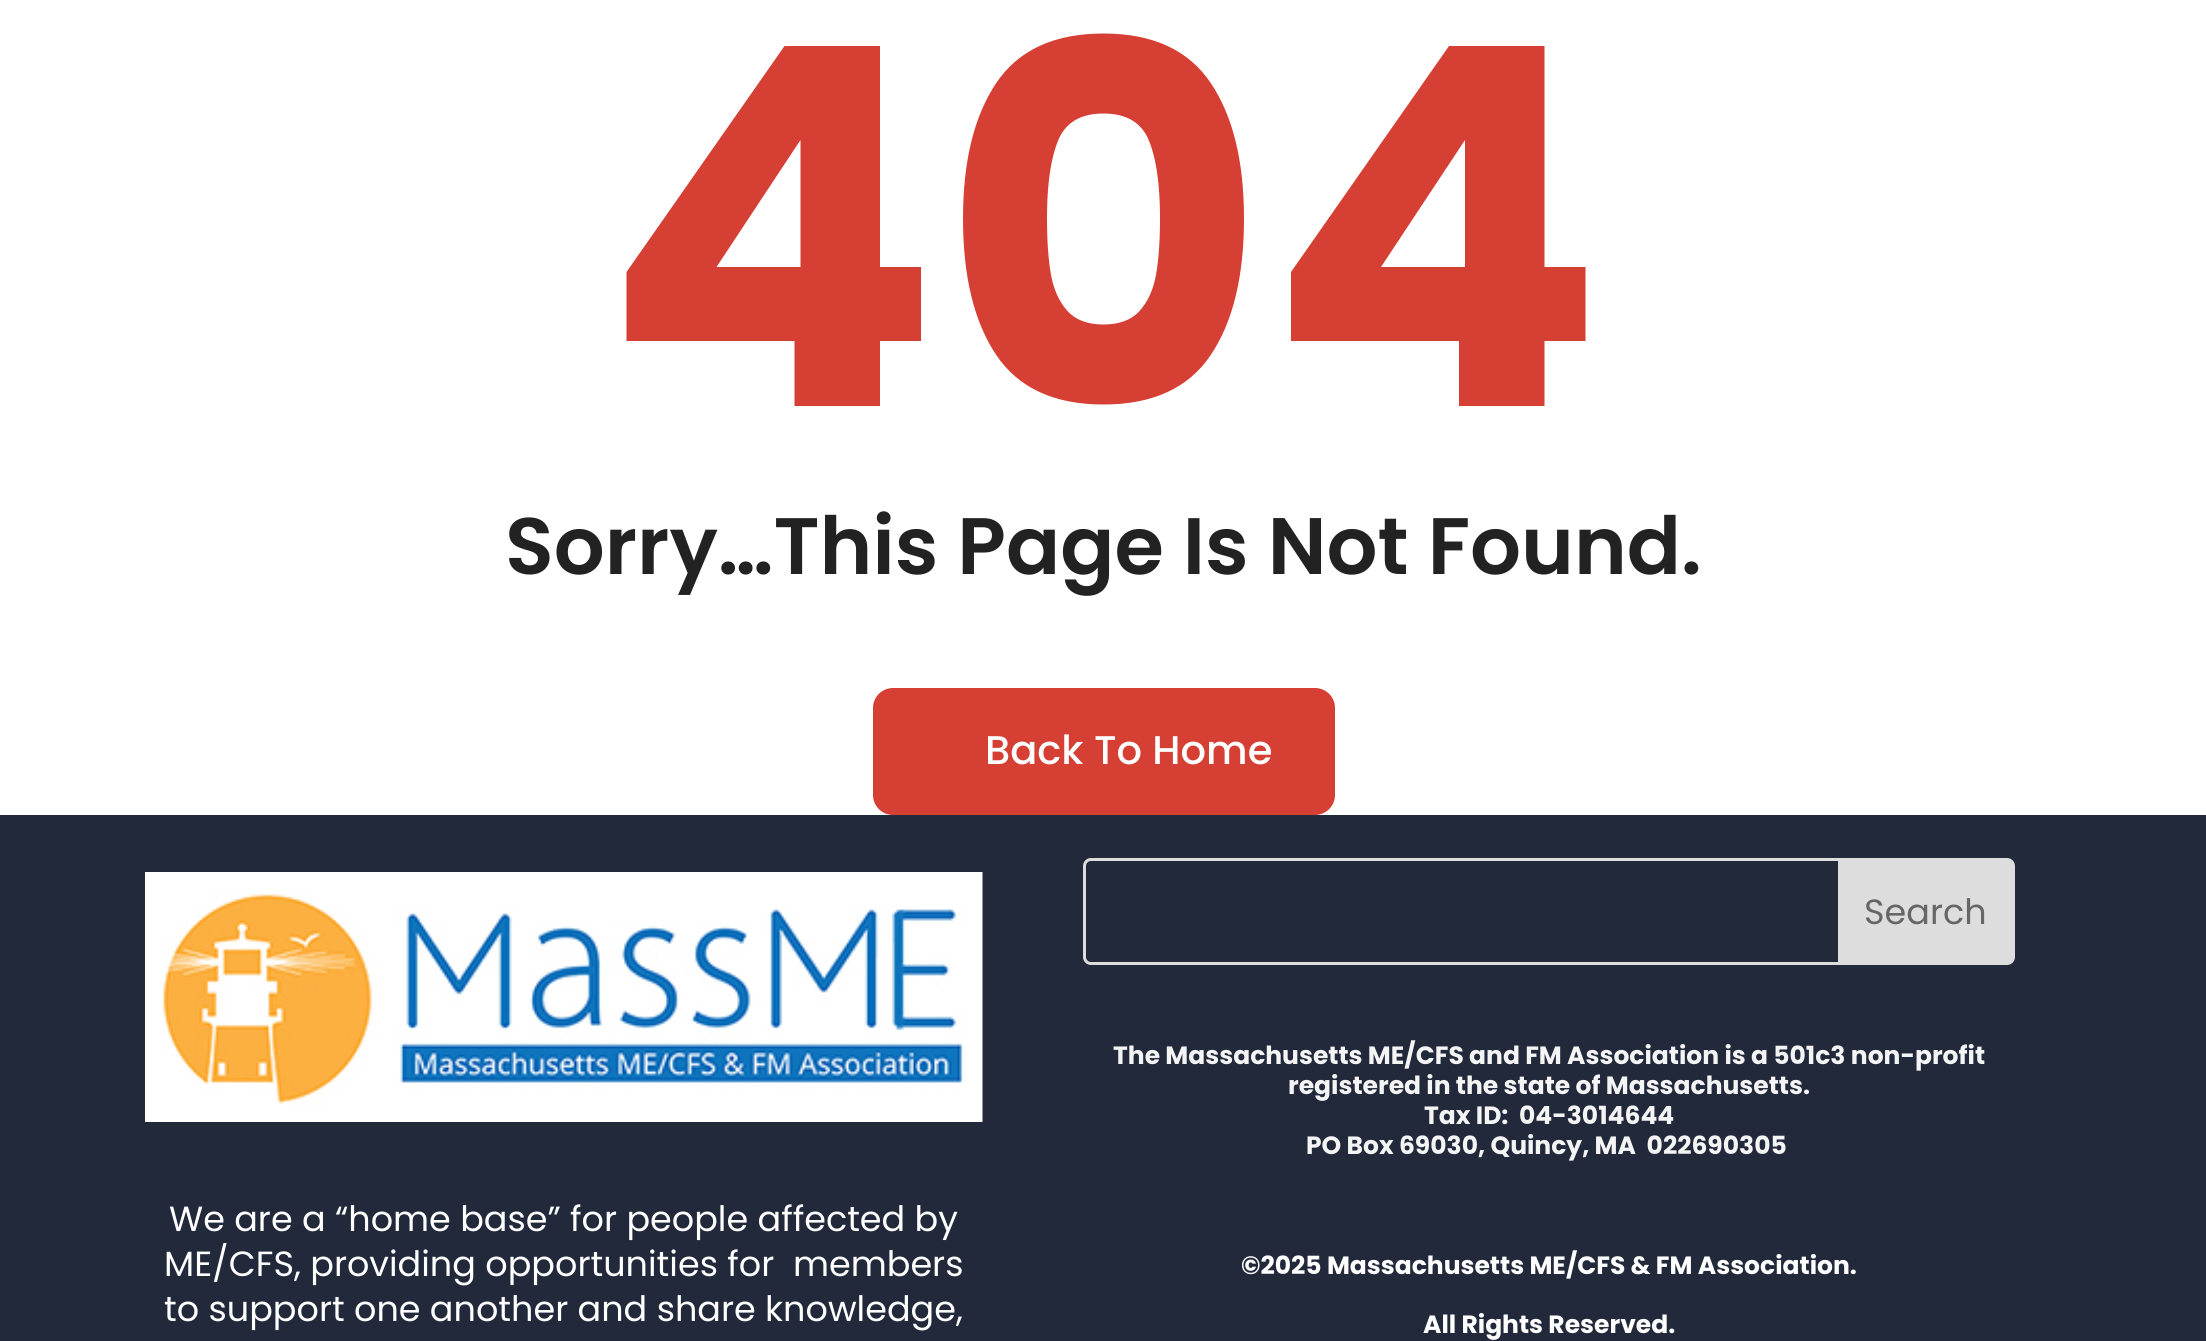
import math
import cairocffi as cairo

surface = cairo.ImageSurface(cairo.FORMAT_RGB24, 2206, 1341)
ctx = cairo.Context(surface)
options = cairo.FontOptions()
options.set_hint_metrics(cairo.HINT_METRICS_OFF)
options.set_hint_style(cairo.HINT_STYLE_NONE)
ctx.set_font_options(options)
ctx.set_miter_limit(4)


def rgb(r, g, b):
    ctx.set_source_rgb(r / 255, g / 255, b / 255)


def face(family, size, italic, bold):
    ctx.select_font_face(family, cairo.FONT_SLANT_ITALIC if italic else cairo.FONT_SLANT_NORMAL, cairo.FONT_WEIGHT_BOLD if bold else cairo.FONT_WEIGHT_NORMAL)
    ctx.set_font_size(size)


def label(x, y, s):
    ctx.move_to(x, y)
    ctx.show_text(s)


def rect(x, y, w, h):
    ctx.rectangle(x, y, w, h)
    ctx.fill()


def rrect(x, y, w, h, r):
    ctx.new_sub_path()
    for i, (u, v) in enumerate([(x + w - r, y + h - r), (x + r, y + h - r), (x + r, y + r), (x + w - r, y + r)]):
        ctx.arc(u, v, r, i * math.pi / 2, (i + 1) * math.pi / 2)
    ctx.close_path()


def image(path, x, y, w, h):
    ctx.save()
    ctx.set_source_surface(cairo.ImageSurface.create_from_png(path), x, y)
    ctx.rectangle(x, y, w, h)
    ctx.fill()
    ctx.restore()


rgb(255, 255, 255)
ctx.paint()
face('Poppins', 500, 0, 1)
rgb(213, 63, 52)
label(602, 406, '404')
face('Poppins SemiBold', 80, 0, 0)
rgb(34, 34, 34)
label(505, 574, 'Sorry…This Page Is Not Found.')
rgb(213, 63, 52)
rrect(873, 688, 462, 127, 20)
ctx.fill()
face('Poppins Medium', 40, 0, 0)
rgb(255, 255, 255)
label(985, 764, 'Back To Home')
rgb(33, 41, 59)
rect(0, 815, 2206, 526)
image('image0.png', 145, 872, 838, 250)
face('Poppins', 35, 0, 0)
rgb(255, 255, 255)
label(169, 1231, 'We are a “home base” for people affected by')
label(164, 1276, 'ME/CFS, providing opportunities for  members')
label(164, 1321, 'to support one another and share knowledge,')
rrect(1084.5, 859.5, 929, 104, 6.5)
rgb(221, 221, 221)
ctx.set_line_width(3)
ctx.stroke()
ctx.new_path()
ctx.move_to(1838, 860)
ctx.line_to(2008, 860)
ctx.curve_to(2011, 860, 2013, 862, 2013, 865)
ctx.line_to(2013, 958)
ctx.curve_to(2013, 961, 2011, 963, 2008, 963)
ctx.line_to(1838, 963)
ctx.close_path()
ctx.fill()
rgb(102, 102, 102)
label(1864, 924, 'Search')
face('Poppins', 25, 0, 1)
rgb(244, 244, 244)
label(1113, 1064, 'The Massachusetts ME/CFS and FM Association is a 501c3 non-profit')
label(1288, 1094, 'registered in the state of Massachusetts.')
label(1424, 1124, 'Tax ID:  04-3014644')
label(1306, 1154, 'PO Box 69030, Quincy, MA  022690305')
rgb(255, 255, 255)
label(1241, 1274, '©2025 Massachusetts ME/CFS & FM Association.')
label(1423, 1333, 'All Rights Reserved.')
surface.write_to_png('render.png')
